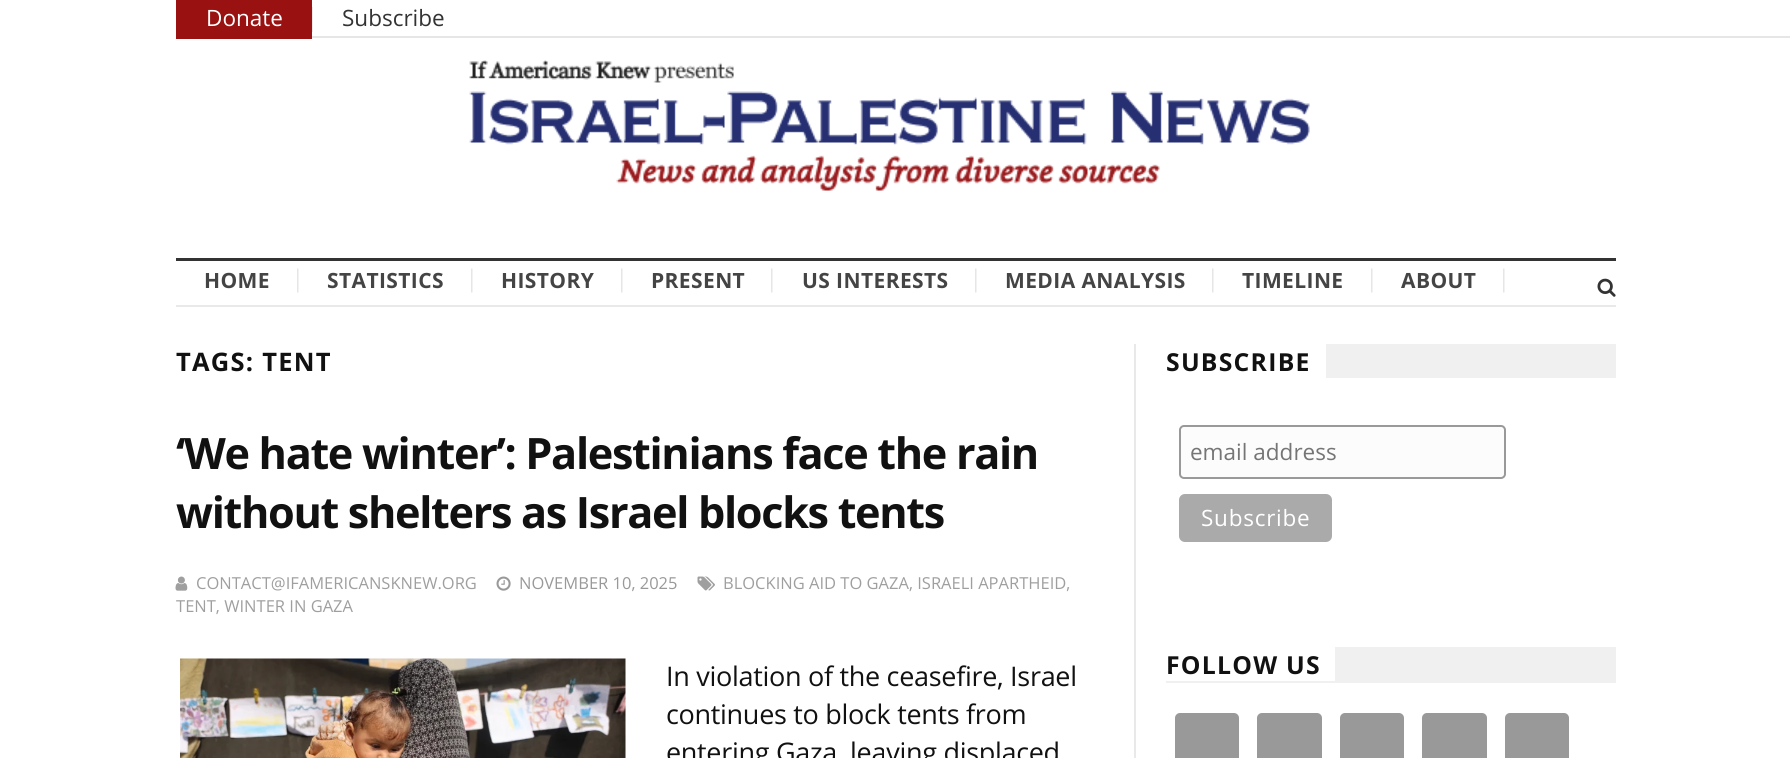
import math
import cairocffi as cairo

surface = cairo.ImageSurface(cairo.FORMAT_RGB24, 1790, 758)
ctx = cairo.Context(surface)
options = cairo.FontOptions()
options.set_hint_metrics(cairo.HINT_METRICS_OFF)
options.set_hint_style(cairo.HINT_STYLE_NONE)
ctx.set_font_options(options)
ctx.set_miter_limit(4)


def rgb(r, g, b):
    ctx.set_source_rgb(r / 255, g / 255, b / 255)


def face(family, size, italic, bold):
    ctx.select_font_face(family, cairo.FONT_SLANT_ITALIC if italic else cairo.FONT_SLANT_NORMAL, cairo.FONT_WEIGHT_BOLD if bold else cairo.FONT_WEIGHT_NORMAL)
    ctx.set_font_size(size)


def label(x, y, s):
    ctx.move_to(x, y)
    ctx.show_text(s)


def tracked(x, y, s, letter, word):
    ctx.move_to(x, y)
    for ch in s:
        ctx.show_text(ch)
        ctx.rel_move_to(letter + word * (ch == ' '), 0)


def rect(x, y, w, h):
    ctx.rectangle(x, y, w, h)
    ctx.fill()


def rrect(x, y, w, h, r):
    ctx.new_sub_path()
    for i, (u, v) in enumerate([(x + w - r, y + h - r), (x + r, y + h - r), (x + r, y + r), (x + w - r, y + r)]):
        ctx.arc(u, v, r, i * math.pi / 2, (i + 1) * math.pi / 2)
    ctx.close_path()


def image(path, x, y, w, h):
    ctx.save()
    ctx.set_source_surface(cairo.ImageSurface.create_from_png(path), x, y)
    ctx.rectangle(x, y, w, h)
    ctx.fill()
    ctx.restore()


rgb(255, 255, 255)
ctx.paint()
rgb(230, 230, 230)
rect(312, 36, 1478, 2)
rgb(233, 233, 233)
rect(312, 7, 1, 25)
rgb(153, 17, 17)
rect(176, 0, 136, 39)
face('Open Sans', 22.5, 0, 0)
rgb(255, 255, 255)
label(206, 26, 'Donate')
rgb(51, 51, 51)
label(342, 26, 'Subscribe')
image('image0.png', 469, 60, 841, 131)
rect(176, 258, 1440, 3)
rgb(233, 233, 233)
rect(176, 305, 1440, 2)
image('image1.png', 297, 268, 2, 25)
face('Open Sans', 21, 0, 1)
rgb(68, 68, 68)
tracked(204, 288, 'HOME', 0.4, 0)
image('image1.png', 471, 268, 2, 25)
tracked(327, 288, 'STATISTICS', 0.4, 0)
image('image1.png', 621, 268, 2, 25)
tracked(501, 288, 'HISTORY', 0.4, 0)
image('image1.png', 771, 268, 2, 25)
tracked(651, 288, 'PRESENT', 0.4, 0)
image('image1.png', 975, 268, 2, 25)
tracked(802, 288, 'US INTERESTS', 0.4, 0)
image('image1.png', 1212, 268, 2, 25)
tracked(1005, 288, 'MEDIA ANALYSIS', 0.4, 0)
image('image1.png', 1371, 268, 2, 25)
tracked(1242, 288, 'TIMELINE', 0.4, 0)
image('image1.png', 1503, 268, 2, 25)
tracked(1401, 288, 'ABOUT', 0.4, 0)
image('image2.png', 1597, 278, 19, 19)
face('Open Sans', 25.5, 0, 1)
rgb(17, 17, 17)
tracked(176, 371, 'TAGS: TENT', 1.25, 0)
face('Open Sans', 43.25, 0, 1)
tracked(176, 469, '‘We hate winter’: Palestinians face the rain', -1.35, 0)
tracked(176, 528, 'without shelters as Israel blocks tents', -1.35, 0)
image('image3.png', 697, 576, 18, 15)
face('Open Sans', 16.5, 0, 0)
rgb(159, 159, 159)
label(723, 589, 'BLOCKING AID TO GAZA, ISRAELI APARTHEID,')
label(176, 612, 'TENT, WINTER IN GAZA')
image('image4.png', 175, 576, 13, 15)
label(196, 589, 'CONTACT@IFAMERICANSKNEW.ORG')
image('image5.png', 496, 576, 15, 15)
rgb(153, 153, 153)
label(519, 589, 'NOVEMBER 10, 2025')
image('image6.png', 180, 658, 446, 100)
face('Open Sans', 27, 0, 0)
rgb(17, 17, 17)
tracked(666, 686, 'In violation of the ceasefire, Israel', -0.3, 0)
tracked(666, 724, 'continues to block tents from', -0.3, 0)
tracked(666, 762, 'entering Gaza, leaving displaced', -0.3, 0)
rgb(233, 233, 233)
rect(1134, 344, 2, 414)
rgb(240, 240, 240)
rect(1326, 344, 290, 34)
face('Open Sans', 24.75, 0, 1)
rgb(17, 17, 17)
tracked(1166, 371, 'SUBSCRIBE', 1.25, 0)
rgb(252, 252, 252)
rrect(1180, 426, 325, 52, 4)
ctx.fill_preserve()
rgb(153, 153, 153)
ctx.stroke()
face('Open Sans', 22.5, 0, 0)
rgb(117, 117, 117)
label(1190, 460, 'email address')
rgb(170, 170, 170)
rrect(1179, 494, 153, 48, 6)
ctx.fill()
rgb(255, 255, 255)
tracked(1201, 526, 'Subscribe', 0.75, 0)
rgb(240, 240, 240)
rect(1166, 647, 450, 36)
rgb(255, 255, 255)
rect(1166, 647, 169, 34)
face('Open Sans', 24.75, 0, 1)
rgb(17, 17, 17)
tracked(1166, 674, 'FOLLOW US', 1.25, 0)
rgb(153, 153, 153)
rrect(1175, 713, 64, 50, 5)
ctx.fill()
rrect(1257, 713, 65, 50, 5)
ctx.fill()
rrect(1340, 713, 64, 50, 5)
ctx.fill()
rrect(1422, 713, 65, 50, 5)
ctx.fill()
rrect(1505, 713, 64, 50, 5)
ctx.fill()
surface.write_to_png('render.png')
